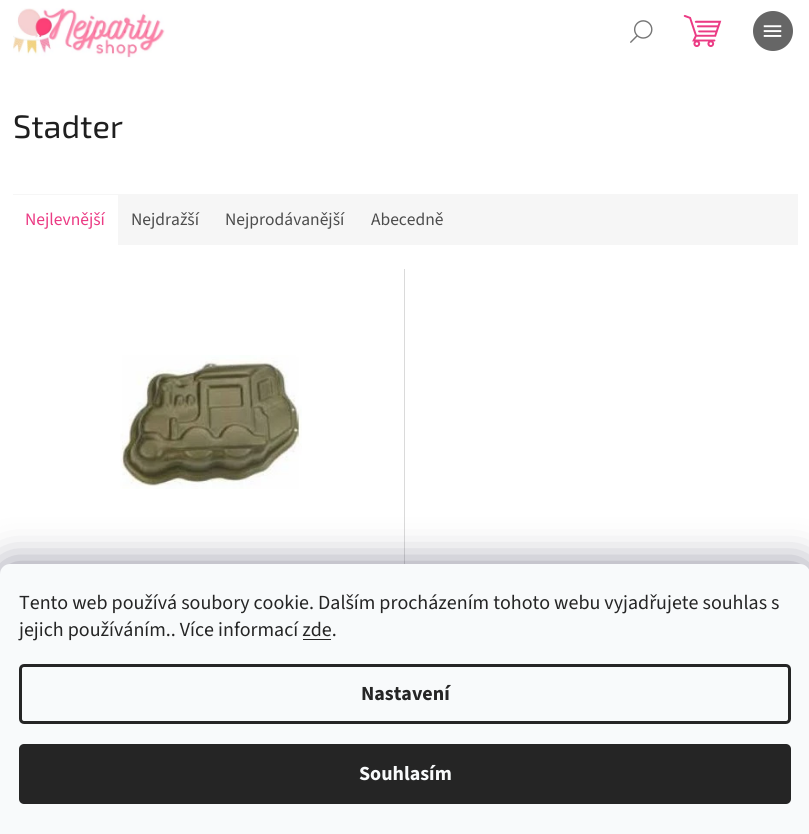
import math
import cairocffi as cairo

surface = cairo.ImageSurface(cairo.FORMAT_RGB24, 809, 834)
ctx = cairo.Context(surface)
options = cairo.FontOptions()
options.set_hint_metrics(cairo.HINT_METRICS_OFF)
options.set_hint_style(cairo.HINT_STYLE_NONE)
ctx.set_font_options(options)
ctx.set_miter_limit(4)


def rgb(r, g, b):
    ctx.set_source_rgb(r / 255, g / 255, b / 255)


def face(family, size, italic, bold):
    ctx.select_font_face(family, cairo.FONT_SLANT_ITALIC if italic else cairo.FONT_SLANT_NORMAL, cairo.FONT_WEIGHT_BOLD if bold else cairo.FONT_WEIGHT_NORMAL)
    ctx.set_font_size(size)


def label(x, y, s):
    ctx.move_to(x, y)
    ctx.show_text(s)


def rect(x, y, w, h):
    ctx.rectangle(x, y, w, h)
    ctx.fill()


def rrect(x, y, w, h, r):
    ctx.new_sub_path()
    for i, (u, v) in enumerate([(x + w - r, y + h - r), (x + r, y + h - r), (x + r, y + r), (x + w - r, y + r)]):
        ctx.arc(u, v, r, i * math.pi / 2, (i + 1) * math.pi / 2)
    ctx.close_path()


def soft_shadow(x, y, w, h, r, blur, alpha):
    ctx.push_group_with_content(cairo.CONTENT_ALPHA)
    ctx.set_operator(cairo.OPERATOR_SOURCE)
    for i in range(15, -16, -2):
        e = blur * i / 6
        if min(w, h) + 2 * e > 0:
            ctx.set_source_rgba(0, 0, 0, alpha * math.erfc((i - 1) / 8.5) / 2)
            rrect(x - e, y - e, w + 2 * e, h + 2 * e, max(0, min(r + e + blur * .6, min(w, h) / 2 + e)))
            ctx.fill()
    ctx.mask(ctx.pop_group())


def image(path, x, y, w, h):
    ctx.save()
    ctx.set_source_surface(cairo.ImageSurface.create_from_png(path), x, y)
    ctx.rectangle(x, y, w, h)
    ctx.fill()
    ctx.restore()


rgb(255, 255, 255)
ctx.paint()
image('image0.png', 13, 8, 152, 50)
image('image1.png', 683, 14, 39, 33)
image('image2.png', 630, 20, 23, 23)
rgb(102, 102, 102)
ctx.arc(773, 31, 20, 0, 2 * math.pi)
ctx.fill()
image('image3.png', 763, 25, 19, 12)
face('Exo 2', 32.5, 0, 0)
rgb(31, 31, 31)
label(13, 138, 'Stadter')
rgb(246, 246, 246)
rect(13, 194, 785, 51)
rgb(255, 255, 255)
rect(13, 195, 105, 50)
face('Source Sans 3', 17.5, 0, 0)
rgb(235, 59, 132)
label(25, 225, 'Nejlevnější')
rgb(77, 77, 77)
label(131, 225, 'Nejdražší')
label(225, 225, 'Nejprodávanější')
label(371, 225, 'Abecedně')
rgb(218, 218, 218)
rect(404, 269, 1, 295)
image('image4.png', 120, 355, 182, 134)
rgb(27, 25, 57)
soft_shadow(0, 564, 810, 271, 10, 19, 0.5)
rgb(248, 250, 251)
ctx.new_path()
ctx.move_to(10, 564)
ctx.line_to(800, 564)
ctx.curve_to(805.5, 564, 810, 568.5, 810, 574)
ctx.line_to(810, 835)
ctx.line_to(0, 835)
ctx.line_to(0, 574)
ctx.curve_to(0, 568.5, 4.5, 564, 10, 564)
ctx.close_path()
ctx.fill()
face('Source Sans 3', 20, 0, 0)
rgb(37, 37, 37)
label(19, 609, 'Tento web používá soubory cookie. Dalším procházením tohoto webu vyjadřujete souhlas s')
label(19, 636, 'jejich používáním.. Více informací zde.')
rect(303, 639, 28, 1)
rrect(20.5, 665.5, 769, 57, 3.5)
ctx.set_line_width(3)
ctx.stroke()
face('Source Sans 3', 20, 0, 1)
label(361, 700, 'Nastavení')
rrect(19, 744, 772, 60, 5)
ctx.fill()
rgb(248, 250, 251)
label(359, 780, 'Souhlasím')
surface.write_to_png('render.png')
